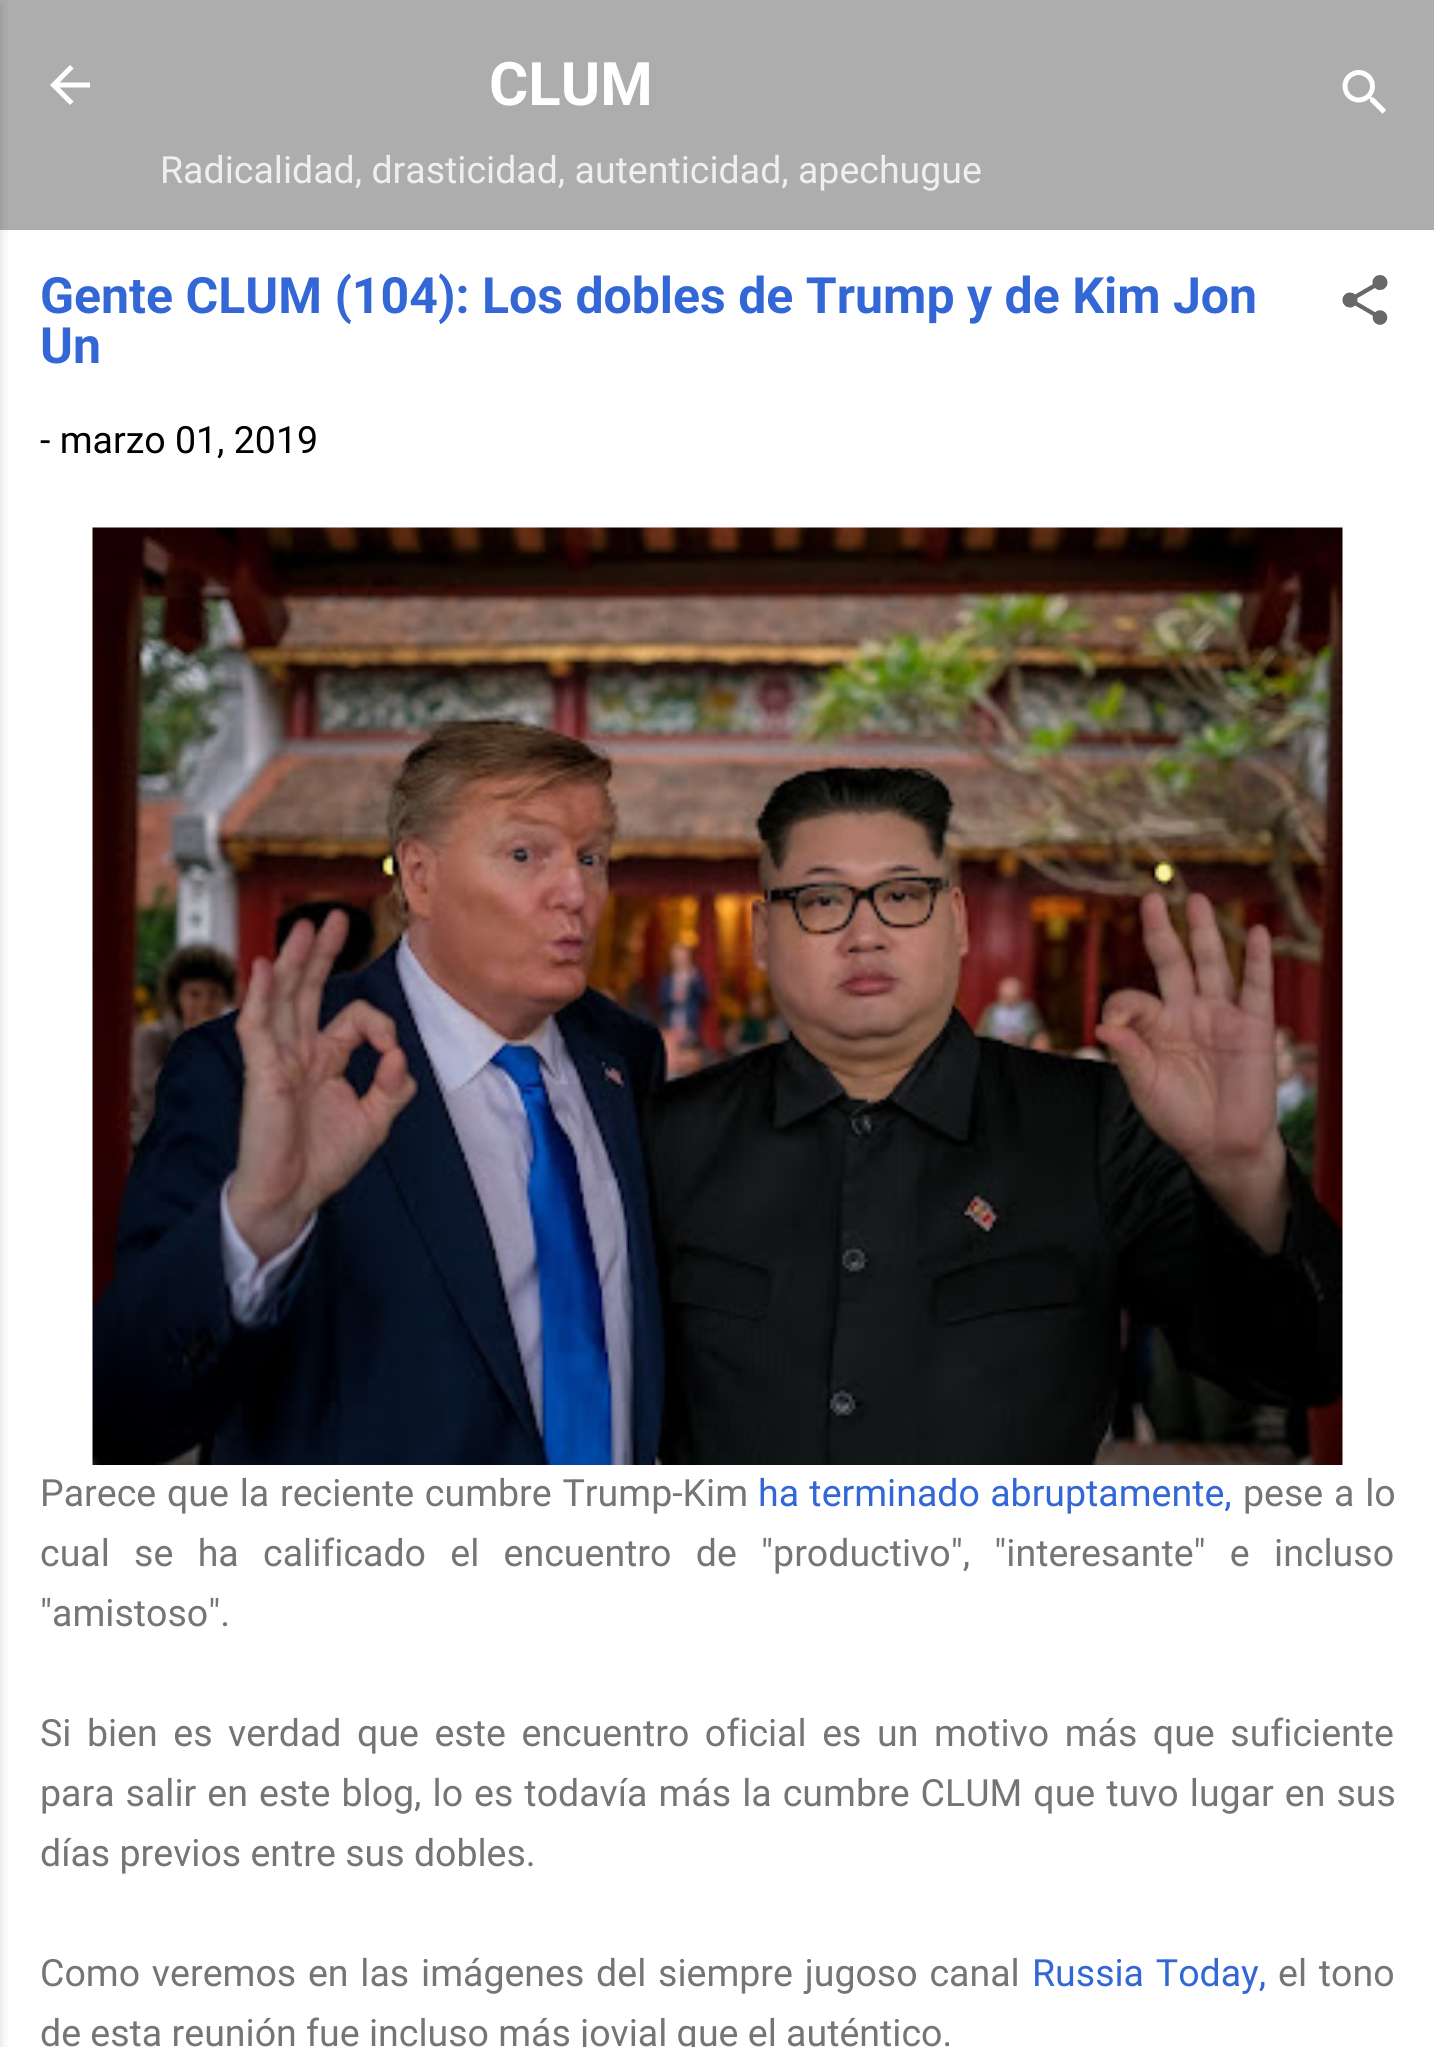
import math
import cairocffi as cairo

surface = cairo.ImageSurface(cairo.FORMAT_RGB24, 1434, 2047)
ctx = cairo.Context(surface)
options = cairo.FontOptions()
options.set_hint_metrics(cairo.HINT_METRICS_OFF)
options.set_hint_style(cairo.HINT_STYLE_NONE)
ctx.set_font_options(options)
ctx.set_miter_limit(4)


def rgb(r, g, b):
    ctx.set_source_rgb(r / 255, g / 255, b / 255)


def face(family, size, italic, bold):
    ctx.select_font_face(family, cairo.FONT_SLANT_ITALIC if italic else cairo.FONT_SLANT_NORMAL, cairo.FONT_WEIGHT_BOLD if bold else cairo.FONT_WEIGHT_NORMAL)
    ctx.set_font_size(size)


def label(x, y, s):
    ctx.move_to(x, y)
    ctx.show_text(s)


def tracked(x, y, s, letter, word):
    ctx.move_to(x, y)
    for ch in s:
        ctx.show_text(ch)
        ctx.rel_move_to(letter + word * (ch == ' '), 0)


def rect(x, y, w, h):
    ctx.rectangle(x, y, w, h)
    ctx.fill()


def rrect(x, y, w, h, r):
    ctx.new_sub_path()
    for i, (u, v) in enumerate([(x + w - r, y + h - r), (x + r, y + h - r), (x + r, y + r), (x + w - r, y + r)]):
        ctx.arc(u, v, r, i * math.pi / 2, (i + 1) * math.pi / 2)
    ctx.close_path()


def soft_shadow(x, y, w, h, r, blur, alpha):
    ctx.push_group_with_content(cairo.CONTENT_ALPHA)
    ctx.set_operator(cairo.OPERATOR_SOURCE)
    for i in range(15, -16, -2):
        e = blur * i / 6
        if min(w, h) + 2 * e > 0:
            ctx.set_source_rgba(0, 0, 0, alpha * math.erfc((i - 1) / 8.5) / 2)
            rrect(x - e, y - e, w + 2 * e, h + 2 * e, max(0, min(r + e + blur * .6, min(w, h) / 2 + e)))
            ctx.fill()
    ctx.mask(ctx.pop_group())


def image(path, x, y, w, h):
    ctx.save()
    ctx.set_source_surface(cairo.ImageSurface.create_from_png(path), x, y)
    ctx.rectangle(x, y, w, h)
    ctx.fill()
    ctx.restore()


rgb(173, 173, 173)
ctx.paint()
rgb(255, 255, 255)
rect(0, 230, 1434, 1817)
rgb(0, 0, 0)
soft_shadow(-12, 3, 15, 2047, 0, 4, 0.1)
image('image0.png', 50, 65, 40, 40)
face('Roboto', 60, 0, 1)
rgb(255, 255, 255)
label(489, 105, 'CLUM')
face('Roboto', 37.5, 0, 0)
rgb(239, 239, 239)
label(160, 183, 'Radicalidad, drasticidad, autenticidad, apechugue')
image('image1.png', 1342, 70, 44, 44)
face('Roboto', 50, 0, 1)
rgb(51, 103, 214)
label(40, 313, 'Gente CLUM (104): Los dobles de Trump y de Kim Jon')
label(40, 363, 'Un')
image('image2.png', 1342, 275, 46, 50)
face('Roboto', 37.5, 0, 0)
rgb(0, 0, 0)
label(40, 453, '- marzo 01, 2019')
image('image3.png', 92, 527, 1251, 938)
rgb(117, 117, 117)
tracked(40, 1506, 'Parece que la reciente cumbre Trump-Kim', 0, 1.5)
rgb(51, 103, 214)
tracked(758, 1506, 'ha terminado abruptamente,', 0, 1)
rgb(117, 117, 117)
tracked(1243, 1506, 'pese a lo', 0, 1.5)
tracked(40, 1566, 'cual se ha calificado el encuentro de "productivo", "interesante" e incluso', 0, 15)
label(40, 1626, '"amistoso".')
tracked(40, 1746, 'Si bien es verdad que este encuentro oficial es un motivo más que suficiente', 0, 6.25)
tracked(40, 1806, 'para salir en este blog, lo es todavía más la cumbre CLUM que tuvo lugar en sus', 0, 1.75)
label(40, 1866, 'días previos entre sus dobles.')
tracked(40, 1986, 'Como veremos en las imágenes del siempre jugoso canal', 0, 2.5)
rgb(51, 103, 214)
tracked(1032, 1986, 'Russia Today,', 0, 2.5)
rgb(117, 117, 117)
tracked(1278, 1986, 'el tono', 0, 2.5)
label(40, 2046, 'de esta reunión fue incluso más jovial que el auténtico.')
surface.write_to_png('render.png')
